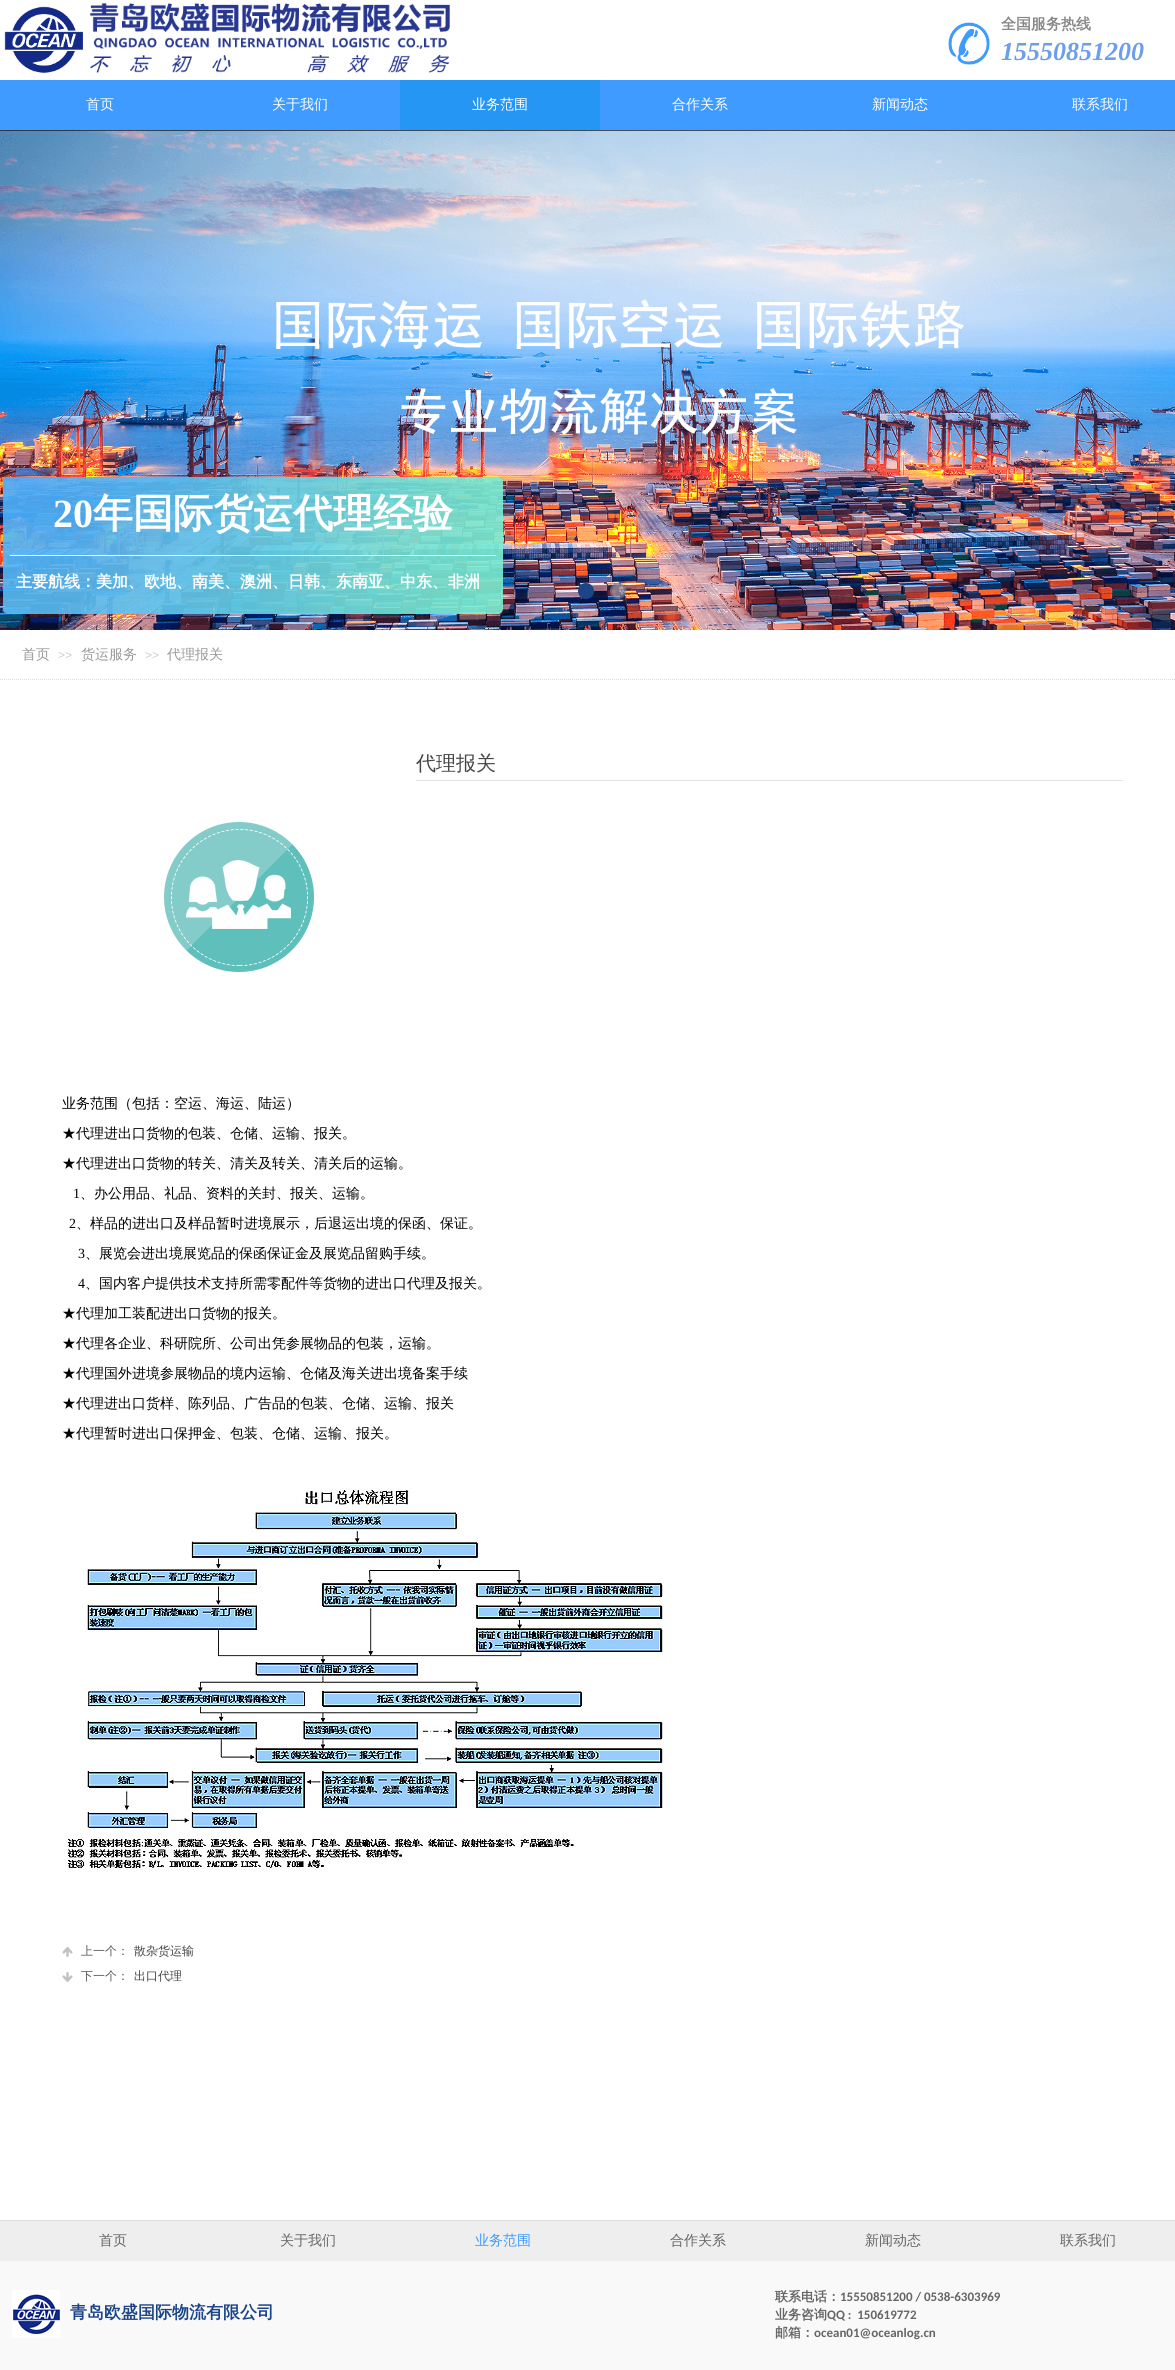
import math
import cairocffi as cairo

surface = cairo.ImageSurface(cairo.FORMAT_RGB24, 1175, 2370)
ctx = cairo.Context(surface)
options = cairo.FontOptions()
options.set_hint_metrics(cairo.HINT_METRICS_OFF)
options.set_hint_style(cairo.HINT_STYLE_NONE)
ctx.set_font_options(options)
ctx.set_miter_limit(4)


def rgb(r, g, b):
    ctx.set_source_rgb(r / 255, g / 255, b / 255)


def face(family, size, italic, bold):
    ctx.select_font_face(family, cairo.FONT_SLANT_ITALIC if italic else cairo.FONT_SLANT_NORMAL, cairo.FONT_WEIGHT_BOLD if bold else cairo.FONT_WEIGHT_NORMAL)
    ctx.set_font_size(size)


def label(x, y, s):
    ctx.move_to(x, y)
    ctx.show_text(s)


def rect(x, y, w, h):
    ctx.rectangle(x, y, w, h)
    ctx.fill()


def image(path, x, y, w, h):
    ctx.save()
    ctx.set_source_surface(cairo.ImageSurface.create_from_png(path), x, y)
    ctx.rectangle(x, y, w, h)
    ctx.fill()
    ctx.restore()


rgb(255, 255, 255)
ctx.paint()
image('image0.png', 4, 6, 79, 67)
image('image1.png', 90, 3, 360, 70)
image('image2.png', 948, 22, 42, 43)
face('WenQuanYi Zen Hei', 15, 0, 1)
rgb(136, 136, 136)
label(1001, 29, '全国服务热线')
face('Liberation Serif', 26, 1, 1)
rgb(109, 158, 235)
label(1001, 60, '15550851200')
rgb(63, 155, 255)
rect(0, 80, 1175, 50)
face('WenQuanYi Zen Hei Medium', 14, 0, 0)
rgb(255, 255, 255)
label(86, 109, '首页')
label(272, 109, '关于我们')
rgb(38, 150, 244)
rect(400, 80, 200, 50)
rgb(255, 255, 255)
label(472, 109, '业务范围')
label(672, 109, '合作关系')
label(872, 109, '新闻动态')
label(1072, 109, '联系我们')
image('image3.png', 0, 130, 1175, 500)
rgb(28, 69, 135)
ctx.arc(586, 591, 7, 0, 2 * math.pi)
ctx.fill_preserve()
ctx.stroke()
ctx.set_source_rgba(1, 1, 1, 0.4)
ctx.arc(618, 591, 8, 0, 2 * math.pi)
ctx.fill()
ctx.arc(618, 591, 7, 0, 2 * math.pi)
ctx.set_source_rgba(0.11, 0.271, 0.529, 0.4)
ctx.stroke()
image('image4.png', 3, 477, 500, 137)
rgb(255, 255, 255)
rect(10, 555, 486, 1)
face('Liberation Serif', 40, 0, 1)
label(53, 527, '20')
face('WenQuanYi Zen Hei', 40, 0, 1)
label(93, 527, '年国际货运代理经验')
face('WenQuanYi Zen Hei', 16, 0, 1)
label(16, 587, '主要航线：美加、欧地、南美、澳洲、日韩、东南亚、中东、非洲')
ctx.new_path()
ctx.move_to(0, 679.5)
ctx.line_to(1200, 679.5)
rgb(221, 221, 221)
ctx.set_line_width(1)
ctx.set_dash([1, 1])
ctx.stroke()
face('WenQuanYi Zen Hei Medium', 14, 0, 0)
rgb(153, 153, 153)
label(22, 659, '首页')
face('Liberation Sans', 12, 0, 0)
rgb(204, 204, 204)
label(58, 659, '>>')
face('WenQuanYi Zen Hei Medium', 14, 0, 0)
rgb(153, 153, 153)
label(81, 659, '货运服务')
face('Liberation Sans', 12, 0, 0)
rgb(204, 204, 204)
label(145, 659, '>>')
face('WenQuanYi Zen Hei Medium', 14, 0, 0)
rgb(153, 153, 153)
label(167, 659, '代理报关')
rgb(226, 226, 226)
rect(416, 780, 707, 1)
face('WenQuanYi Zen Hei Medium', 20, 0, 0)
rgb(69, 69, 69)
label(416, 770, '代理报关')
image('image5.png', 164, 822, 150, 150)
face('WenQuanYi Zen Hei Medium', 14, 0, 0)
rgb(0, 0, 0)
label(62, 1108, '业务范围（包括：空运、海运、陆运）')
label(62, 1138, '★代理进出口货物的包装、仓储、运输、报关。')
label(62, 1168, '★代理进出口货物的转关、清关及转关、清关后的运输。')
face('Liberation Serif', 14, 0, 0)
label(73, 1198, '1')
face('WenQuanYi Zen Hei Medium', 14, 0, 0)
label(80, 1198, '、办公用品、礼品、资料的关封、报关、运输。')
face('Liberation Serif', 14, 0, 0)
label(69, 1228, '2')
face('WenQuanYi Zen Hei Medium', 14, 0, 0)
label(76, 1228, '、样品的进出口及样品暂时进境展示，后退运出境的保函、保证。')
face('Liberation Serif', 14, 0, 0)
label(78, 1258, '3')
face('WenQuanYi Zen Hei Medium', 14, 0, 0)
label(85, 1258, '、展览会进出境展览品的保函保证金及展览品留购手续。')
face('Liberation Serif', 14, 0, 0)
label(78, 1288, '4')
face('WenQuanYi Zen Hei Medium', 14, 0, 0)
label(85, 1288, '、国内客户提供技术支持所需零配件等货物的进出口代理及报关。')
label(62, 1318, '★代理加工装配进出口货物的报关。')
label(62, 1348, '★代理各企业、科研院所、公司出凭参展物品的包装，运输。')
label(62, 1378, '★代理国外进境参展物品的境内运输、仓储及海关进出境备案手续')
label(62, 1408, '★代理进出口货样、陈列品、广告品的包装、仓储、运输、报关')
label(62, 1438, '★代理暂时进出口保押金、包装、仓储、运输、报关。')
image('image6.png', 68, 1488, 597, 382)
rgb(194, 194, 194)
rect(62, 1947, 11, 10)
image('image7.png', 62, 1947, 11, 10)
face('WenQuanYi Zen Hei Medium', 12, 0, 0)
rgb(89, 89, 89)
label(81, 1955, '上一个：')
rgb(69, 69, 69)
label(134, 1955, '散杂货运输')
rgb(194, 194, 194)
rect(62, 1972, 11, 10)
image('image8.png', 62, 1972, 11, 10)
rgb(89, 89, 89)
label(81, 1980, '下一个：')
rgb(69, 69, 69)
label(134, 1980, '出口代理')
rgb(249, 249, 249)
rect(0, 2261, 1175, 109)
rgb(221, 221, 221)
rect(0, 2220, 1175, 1)
rgb(238, 238, 238)
rect(0, 2221, 1175, 40)
face('WenQuanYi Zen Hei Medium', 14, 0, 0)
rgb(102, 102, 102)
label(99, 2245, '首页')
label(280, 2245, '关于我们')
rgb(63, 155, 255)
label(475, 2245, '业务范围')
rgb(102, 102, 102)
label(670, 2245, '合作关系')
label(865, 2245, '新闻动态')
label(1060, 2245, '联系我们')
image('image9.png', 12, 2290, 48, 48)
face('WenQuanYi Zen Hei', 17, 0, 1)
rgb(28, 69, 135)
label(70, 2318, '青岛欧盛国际物流有限公司')
face('WenQuanYi Zen Hei', 13, 0, 1)
rgb(102, 102, 102)
label(775, 2301, '联系电话：')
face('Carlito', 13, 0, 1)
label(840, 2301, '15550851200 / 0538-6303969')
face('WenQuanYi Zen Hei', 13, 0, 1)
label(775, 2319, '业务咨询')
face('Carlito', 13, 0, 1)
label(827, 2319, 'QQ :  150619772')
face('WenQuanYi Zen Hei', 13, 0, 1)
label(775, 2337, '邮箱：')
face('Carlito', 13, 0, 1)
label(814, 2337, 'ocean01@oceanlog.cn')
surface.write_to_png('render.png')
